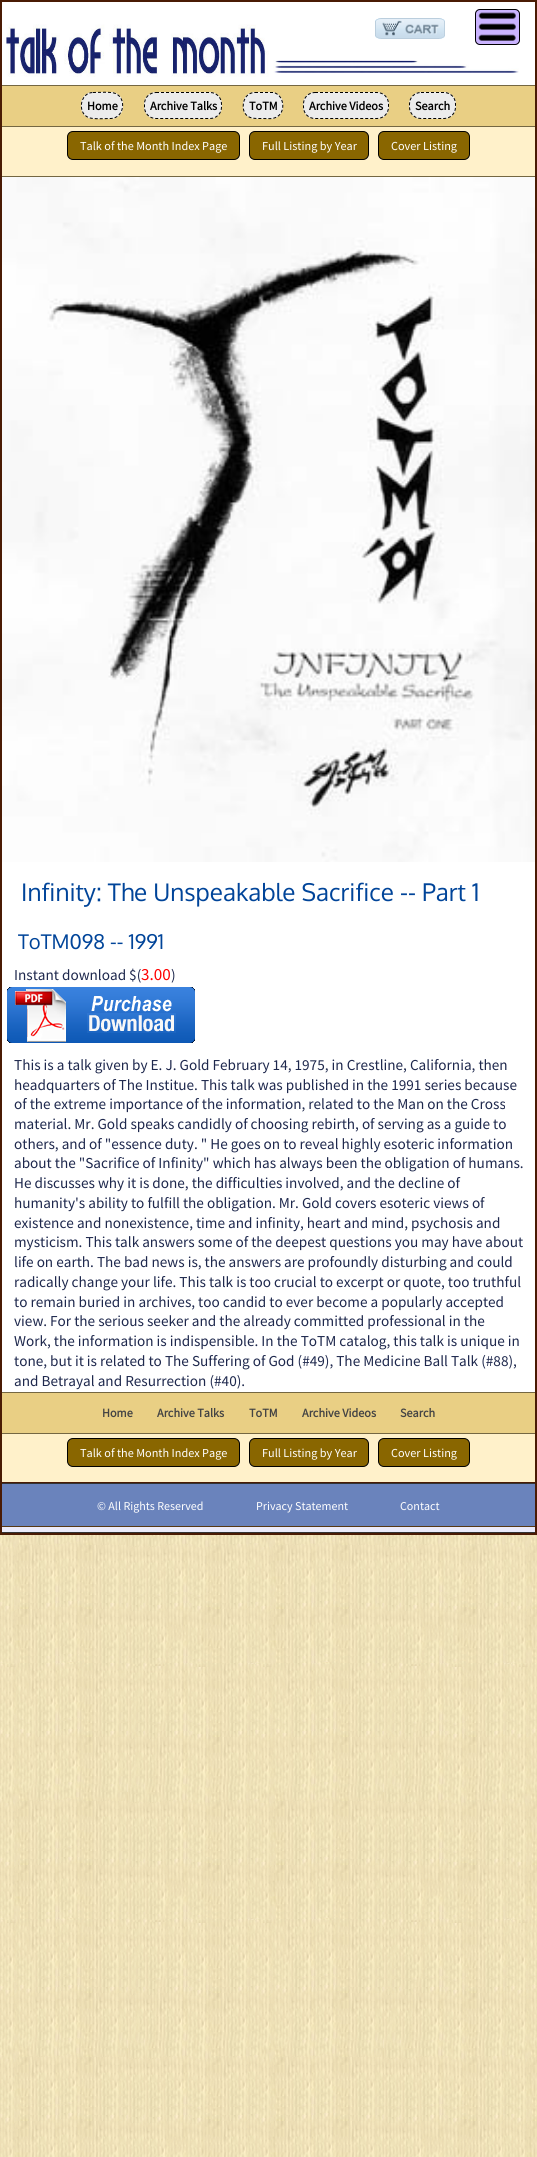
import math
import cairocffi as cairo

surface = cairo.ImageSurface(cairo.FORMAT_RGB24, 537, 2157)
ctx = cairo.Context(surface)
options = cairo.FontOptions()
options.set_hint_metrics(cairo.HINT_METRICS_OFF)
options.set_hint_style(cairo.HINT_STYLE_NONE)
ctx.set_font_options(options)
ctx.set_miter_limit(4)


def rgb(r, g, b):
    ctx.set_source_rgb(r / 255, g / 255, b / 255)


def face(family, size, italic, bold):
    ctx.select_font_face(family, cairo.FONT_SLANT_ITALIC if italic else cairo.FONT_SLANT_NORMAL, cairo.FONT_WEIGHT_BOLD if bold else cairo.FONT_WEIGHT_NORMAL)
    ctx.set_font_size(size)


def label(x, y, s):
    ctx.move_to(x, y)
    ctx.show_text(s)


def rect(x, y, w, h):
    ctx.rectangle(x, y, w, h)
    ctx.fill()


def rrect(x, y, w, h, r):
    ctx.new_sub_path()
    for i, (u, v) in enumerate([(x + w - r, y + h - r), (x + r, y + h - r), (x + r, y + r), (x + w - r, y + r)]):
        ctx.arc(u, v, r, i * math.pi / 2, (i + 1) * math.pi / 2)
    ctx.close_path()


def image(path, x, y, w, h):
    ctx.save()
    ctx.set_source_surface(cairo.ImageSurface.create_from_png(path), x, y)
    ctx.rectangle(x, y, w, h)
    ctx.fill()
    ctx.restore()


rgb(255, 255, 255)
ctx.paint()
image('image0.png', 0, 1535, 537, 622)
ctx.rectangle(1, 1, 535, 1533)
rgb(74, 27, 4)
ctx.stroke()
image('image1.png', 6, 24, 263, 53)
image('image2.png', 375, 18, 70, 21)
rgb(202, 179, 255)
rrect(475, 9, 45, 36, 5)
ctx.fill()
image('image3.png', 478, 12, 38, 29)
rrect(475.5, 9.5, 44, 35, 4.5)
rgb(0, 0, 0)
ctx.set_line_width(1)
ctx.stroke()
image('image4.png', 273, 60, 246, 13)
rgb(233, 207, 132)
rect(2, 86, 533, 40)
rgb(116, 103, 66)
rect(2, 85, 533, 1)
rect(2, 126, 533, 1)
rgb(236, 236, 236)
rrect(81, 92, 42, 27, 12)
ctx.fill()
ctx.new_path()
ctx.move_to(93, 92.5)
ctx.curve_to(98.5, 92.5, 111, 91.5, 115.5, 93.5)
ctx.curve_to(127, 98.5, 124, 118, 111, 118.5)
ctx.curve_to(106, 118.5, 93, 119.5, 88.5, 117.5)
ctx.curve_to(77, 113, 80, 92.5, 93, 92.5)
ctx.close_path()
rgb(0, 0, 0)
ctx.set_dash([3, 2])
ctx.stroke()
face('Source Sans Pro', 12.2, 0, 1)
label(87, 110, 'Home')
rgb(236, 236, 236)
rrect(144, 92, 78, 27, 12)
ctx.fill()
ctx.new_path()
ctx.move_to(156, 92.5)
ctx.line_to(210, 92.5)
ctx.curve_to(216.5, 92.5, 221.5, 97.5, 221.5, 104)
ctx.line_to(221.5, 107)
ctx.curve_to(221.5, 113.5, 216.5, 118.5, 210, 118.5)
ctx.line_to(156, 118.5)
ctx.curve_to(149.5, 118.5, 144.5, 113.5, 144.5, 107)
ctx.line_to(144.5, 104)
ctx.curve_to(144.5, 97.5, 149.5, 92.5, 156, 92.5)
ctx.close_path()
rgb(0, 0, 0)
ctx.stroke()
label(150, 110, 'Archive Talks')
rgb(236, 236, 236)
rrect(243, 92, 40, 27, 12)
ctx.fill()
ctx.new_path()
ctx.move_to(255, 92.5)
ctx.line_to(273.5, 92.5)
ctx.curve_to(284, 95, 286, 111, 277.5, 116.5)
ctx.curve_to(273, 119.5, 268, 118.5, 263, 118.5)
ctx.curve_to(255, 118.5, 246, 119.5, 243.5, 109.5)
ctx.curve_to(242, 101.5, 246, 92.5, 255, 92.5)
ctx.close_path()
rgb(0, 0, 0)
ctx.stroke()
label(249, 110, 'ToTM')
rgb(236, 236, 236)
rrect(303, 92, 86, 27, 12)
ctx.fill()
ctx.new_path()
ctx.move_to(315, 92.5)
ctx.line_to(377, 92.5)
ctx.curve_to(383.5, 92.5, 388.5, 97.5, 388.5, 104)
ctx.line_to(388.5, 107)
ctx.curve_to(388.5, 113.5, 383.5, 118.5, 377, 118.5)
ctx.line_to(315, 118.5)
ctx.curve_to(308.5, 118.5, 303.5, 113.5, 303.5, 107)
ctx.line_to(303.5, 104)
ctx.curve_to(303.5, 97.5, 308.5, 92.5, 315, 92.5)
ctx.close_path()
rgb(0, 0, 0)
ctx.stroke()
label(309, 110, 'Archive Videos')
rgb(236, 236, 236)
rrect(409, 92, 47, 27, 12)
ctx.fill()
ctx.new_path()
ctx.move_to(421, 92.5)
ctx.line_to(444, 92.5)
ctx.curve_to(450.5, 92.5, 455.5, 97.5, 455.5, 104)
ctx.line_to(455.5, 107)
ctx.curve_to(455.5, 113.5, 450.5, 118.5, 444, 118.5)
ctx.line_to(421, 118.5)
ctx.curve_to(414.5, 118.5, 409.5, 113.5, 409.5, 107)
ctx.line_to(409.5, 104)
ctx.curve_to(409.5, 97.5, 414.5, 92.5, 421, 92.5)
ctx.close_path()
rgb(0, 0, 0)
ctx.stroke()
label(415, 110, 'Search')
rgb(255, 241, 202)
rect(2, 127, 533, 49)
rgb(116, 103, 66)
rect(2, 176, 533, 1)
rgb(137, 102, 0)
rrect(67.5, 131.5, 172, 28, 5.5)
ctx.fill_preserve()
rgb(0, 0, 0)
ctx.set_dash([])
ctx.stroke()
face('Source Sans Pro', 12.2, 0, 0)
rgb(255, 255, 255)
label(80, 150, 'Talk of the Month Index Page')
rgb(137, 102, 0)
rrect(249.5, 131.5, 119, 28, 5.5)
ctx.fill_preserve()
rgb(0, 0, 0)
ctx.stroke()
rgb(255, 255, 255)
label(262, 150, 'Full Listing by Year')
rgb(137, 102, 0)
rrect(378.5, 131.5, 91, 28, 5.5)
ctx.fill_preserve()
rgb(0, 0, 0)
ctx.stroke()
rgb(255, 255, 255)
label(391, 150, 'Cover Listing')
image('image5.png', 2, 177, 533, 685)
face('Oxygen', 24.25, 0, 0)
rgb(0, 68, 153)
label(21, 901, 'Infinity: The Unspeakable Sacrifice -- Part 1')
face('Oxygen', 20.25, 0, 0)
label(18, 949, 'ToTM098 -- 1991')
face('Source Sans Pro', 15.2, 0, 0)
rgb(30, 40, 77)
label(14, 980, 'Instant download $(')
face('Source Sans Pro', 17, 0, 0)
rgb(255, 0, 0)
label(141, 980, '3.00')
face('Source Sans Pro', 15.2, 0, 0)
rgb(30, 40, 77)
label(171, 980, ')')
image('image6.png', 7, 987, 188, 56)
label(14, 1070, 'This is a talk given by E. J. Gold February 14, 1975, in Crestline, California, then')
label(14, 1090, 'headquarters of The Institue. This talk was published in the 1991 series because')
label(14, 1109, 'of the extreme importance of the information, related to the Man on the Cross')
label(14, 1129, 'material. Mr. Gold speaks candidly of choosing rebirth, of serving as a guide to')
label(14, 1149, 'others, and of "essence duty. " He goes on to reveal highly esoteric information')
label(14, 1168, 'about the "Sacrifice of Infinity" which has always been the obligation of humans.')
label(14, 1188, 'He discusses why it is done, the difficulties involved, and the decline of')
label(14, 1208, 'humanity\'s ability to fulfill the obligation. Mr. Gold covers esoteric views of')
label(14, 1228, 'existence and nonexistence, time and infinity, heart and mind, psychosis and')
label(14, 1247, 'mysticism. This talk answers some of the deepest questions you may have about')
label(14, 1267, 'life on earth. The bad news is, the answers are profoundly disturbing and could')
label(14, 1287, 'radically change your life. This talk is too crucial to excerpt or quote, too truthful')
label(14, 1307, 'to remain buried in archives, too candid to ever become a popularly accepted')
label(14, 1326, 'view. For the serious seeker and the already committed professional in the')
label(14, 1346, 'Work, the information is indispensible. In the ToTM catalog, this talk is unique in')
label(14, 1366, 'tone, but it is related to The Suffering of God (#49), The Medicine Ball Talk (#88),')
label(14, 1386, 'and Betrayal and Resurrection (#40).')
rgb(233, 207, 132)
rect(2, 1393, 533, 40)
rgb(116, 103, 66)
rect(2, 1392, 533, 1)
rect(2, 1433, 533, 1)
face('Source Sans Pro', 12.2, 0, 1)
rgb(68, 68, 68)
label(102, 1417, 'Home')
label(157, 1417, 'Archive Talks')
label(249, 1417, 'ToTM')
label(302, 1417, 'Archive Videos')
label(400, 1417, 'Search')
rgb(255, 241, 202)
rect(2, 1434, 533, 48)
rgb(74, 27, 4)
rect(2, 1482, 533, 1)
rgb(137, 102, 0)
rrect(67.5, 1438.5, 172, 28, 5.5)
ctx.fill_preserve()
rgb(0, 0, 0)
ctx.stroke()
face('Source Sans Pro', 12.2, 0, 0)
rgb(255, 255, 255)
label(80, 1457, 'Talk of the Month Index Page')
rgb(137, 102, 0)
rrect(249.5, 1438.5, 119, 28, 5.5)
ctx.fill_preserve()
rgb(0, 0, 0)
ctx.stroke()
rgb(255, 255, 255)
label(262, 1457, 'Full Listing by Year')
rgb(137, 102, 0)
rrect(378.5, 1438.5, 91, 28, 5.5)
ctx.fill_preserve()
rgb(0, 0, 0)
ctx.stroke()
rgb(255, 255, 255)
label(391, 1457, 'Cover Listing')
rgb(235, 235, 250)
rect(2, 1527, 533, 5)
rgb(51, 51, 51)
rect(2, 1483, 533, 1)
rect(2, 1532, 533, 1)
rgb(106, 131, 188)
rect(2, 1484, 533, 42)
rgb(86, 56, 20)
rect(2, 1526, 533, 1)
face('Source Sans Pro', 12, 0, 0)
rgb(255, 255, 255)
label(97, 1510, '© All Rights Reserved')
label(256, 1510, 'Privacy Statement')
label(400, 1510, 'Contact')
surface.write_to_png('render.png')
